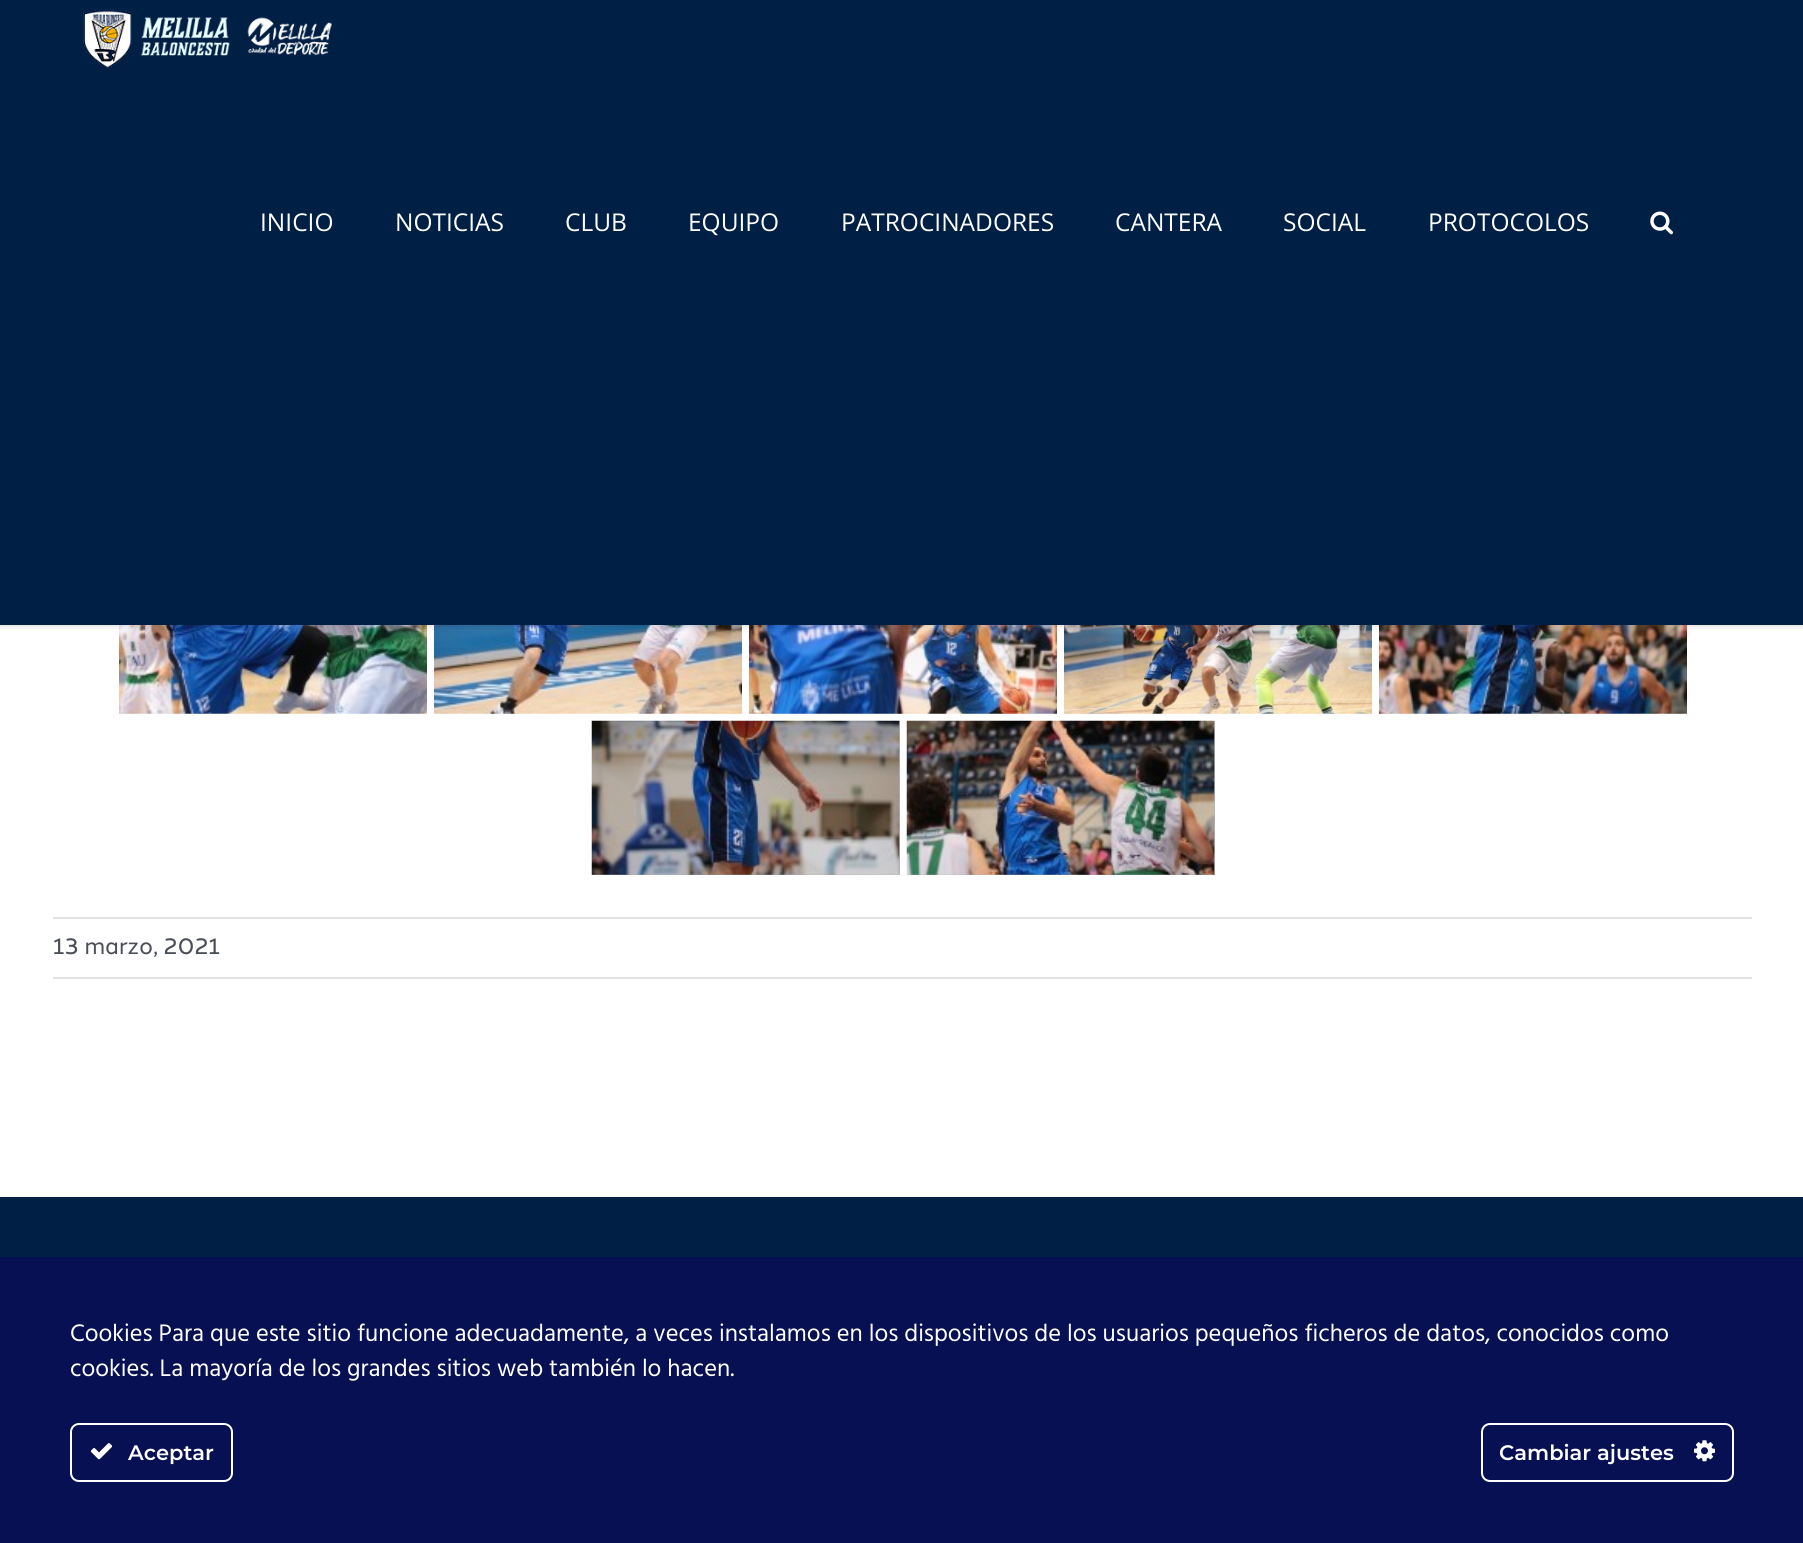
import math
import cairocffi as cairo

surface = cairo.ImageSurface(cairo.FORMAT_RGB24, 1803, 1543)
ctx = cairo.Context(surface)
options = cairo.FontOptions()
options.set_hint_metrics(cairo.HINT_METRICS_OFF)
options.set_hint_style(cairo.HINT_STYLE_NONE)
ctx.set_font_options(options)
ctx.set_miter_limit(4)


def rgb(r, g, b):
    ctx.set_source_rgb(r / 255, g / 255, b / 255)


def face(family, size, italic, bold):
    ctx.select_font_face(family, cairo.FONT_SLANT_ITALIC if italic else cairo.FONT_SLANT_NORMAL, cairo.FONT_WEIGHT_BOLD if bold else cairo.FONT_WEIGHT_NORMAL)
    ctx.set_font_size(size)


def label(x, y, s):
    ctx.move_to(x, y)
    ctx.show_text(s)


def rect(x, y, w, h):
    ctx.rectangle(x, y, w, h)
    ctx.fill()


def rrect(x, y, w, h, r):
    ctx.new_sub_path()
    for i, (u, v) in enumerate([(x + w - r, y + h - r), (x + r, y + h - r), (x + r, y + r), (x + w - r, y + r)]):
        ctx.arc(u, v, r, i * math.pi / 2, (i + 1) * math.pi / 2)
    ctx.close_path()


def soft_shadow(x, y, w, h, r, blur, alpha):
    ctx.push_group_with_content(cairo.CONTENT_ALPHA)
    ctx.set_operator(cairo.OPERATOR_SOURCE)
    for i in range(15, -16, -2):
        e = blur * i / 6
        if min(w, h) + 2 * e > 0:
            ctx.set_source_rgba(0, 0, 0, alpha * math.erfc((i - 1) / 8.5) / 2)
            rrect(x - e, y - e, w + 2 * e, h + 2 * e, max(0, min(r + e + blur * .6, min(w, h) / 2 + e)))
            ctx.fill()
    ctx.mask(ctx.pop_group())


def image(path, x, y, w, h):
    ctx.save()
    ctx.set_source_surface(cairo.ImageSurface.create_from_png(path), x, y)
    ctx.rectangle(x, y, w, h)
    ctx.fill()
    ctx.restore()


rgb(255, 255, 255)
ctx.paint()
image('image2.png', 119, 625, 308, 89)
image('image3.png', 434, 625, 308, 89)
image('image4.png', 749, 625, 308, 89)
image('image5.png', 1064, 625, 308, 89)
image('image6.png', 1379, 625, 308, 89)
rgb(0, 0, 0)
soft_shadow(0, 2, 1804, 625, 0, 2.5, 0.12)
rgb(0, 31, 69)
rect(0, 0, 1803, 625)
image('image0.png', 83, 9, 249, 60)
face('Open Sans', 24.5, 0, 0)
rgb(255, 255, 255)
label(260, 231, 'INICIO')
label(395, 231, 'NOTICIAS')
label(565, 231, 'CLUB')
label(688, 231, 'EQUIPO')
label(841, 231, 'PATROCINADORES')
label(1115, 231, 'CANTERA')
label(1283, 231, 'SOCIAL')
label(1428, 231, 'PROTOCOLOS')
image('image1.png', 1650, 211, 23, 24)
rgb(179, 179, 179)
rect(592, 721, 308, 154)
image('image7.png', 591, 720, 309, 155)
rect(907, 721, 308, 154)
image('image8.png', 906, 720, 309, 155)
rgb(226, 226, 226)
rect(53, 917, 1699, 2)
rect(53, 977, 1699, 2)
face('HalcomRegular', 22.75, 0, 0)
rgb(74, 78, 87)
label(53, 954, '13 marzo, 2021')
rgb(0, 31, 69)
rect(0, 1197, 1803, 60)
rgb(7, 16, 83)
rect(0, 1257, 1803, 286)
face('Hind', 24.5, 0, 0)
rgb(255, 255, 255)
label(70, 1341, 'Cookies Para que este sitio funcione adecuadamente, a veces instalamos en los dispositivos de los usuarios pequeños ficheros de datos, conocidos como')
label(70, 1376, 'cookies. La mayoría de los grandes sitios web también lo hacen.')
rrect(71, 1424, 161, 57, 8)
ctx.stroke()
image('image9.png', 90, 1443, 23, 17)
face('Montserrat SemiBold', 21, 0, 0)
label(128, 1460, 'Aceptar')
rrect(1482, 1424, 251, 57, 8)
ctx.stroke()
label(1499, 1460, 'Cambiar ajustes')
image('image10.png', 1694, 1440, 21, 22)
surface.write_to_png('render.png')
